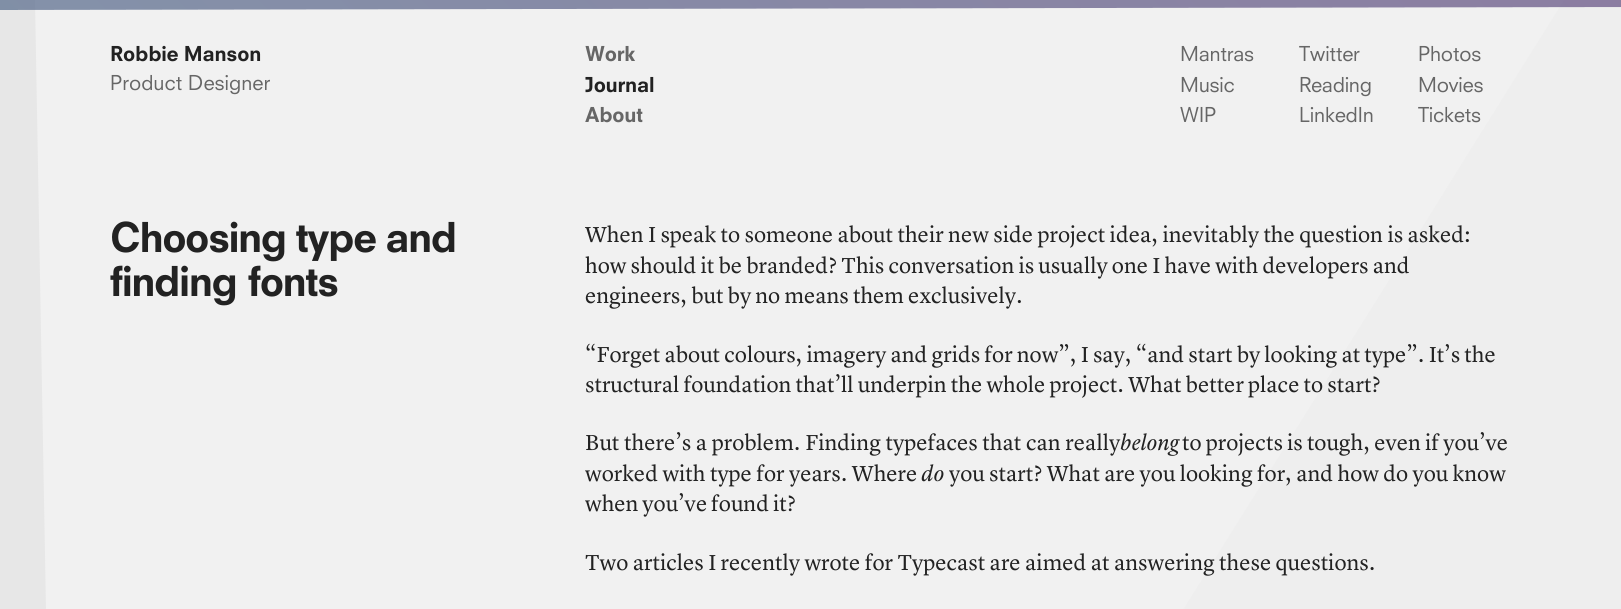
import math
import cairocffi as cairo

surface = cairo.ImageSurface(cairo.FORMAT_RGB24, 1621, 609)
ctx = cairo.Context(surface)
options = cairo.FontOptions()
options.set_hint_metrics(cairo.HINT_METRICS_OFF)
options.set_hint_style(cairo.HINT_STYLE_NONE)
ctx.set_font_options(options)
ctx.set_miter_limit(4)


def rgb(r, g, b):
    ctx.set_source_rgb(r / 255, g / 255, b / 255)


def face(family, size, italic, bold):
    ctx.select_font_face(family, cairo.FONT_SLANT_ITALIC if italic else cairo.FONT_SLANT_NORMAL, cairo.FONT_WEIGHT_BOLD if bold else cairo.FONT_WEIGHT_NORMAL)
    ctx.set_font_size(size)


def label(x, y, s):
    ctx.move_to(x, y)
    ctx.show_text(s)


def tracked(x, y, s, letter, word):
    ctx.move_to(x, y)
    for ch in s:
        ctx.show_text(ch)
        ctx.rel_move_to(letter + word * (ch == ' '), 0)


rgb(241, 241, 241)
ctx.paint()
rgb(238, 238, 238)
ctx.new_path()
ctx.move_to(-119, 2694)
ctx.line_to(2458, -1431)
ctx.line_to(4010, -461)
ctx.line_to(1433, 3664)
ctx.close_path()
ctx.fill()
rgb(231, 231, 231)
ctx.new_path()
ctx.move_to(-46, 0)
ctx.line_to(35, 0)
ctx.line_to(46, 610)
ctx.line_to(-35, 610)
ctx.close_path()
ctx.fill()
gradient = cairo.LinearGradient(401, 411, 1220, -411)
gradient.add_color_stop_rgba(0, 0.286, 0.373, 0.514, 0.65)
gradient.add_color_stop_rgba(1, 0.337, 0.251, 0.467, 0.65)
ctx.set_source(gradient)
ctx.new_path()
ctx.move_to(0, -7)
ctx.line_to(1621, -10)
ctx.line_to(1621, 7)
ctx.line_to(0, 10)
ctx.close_path()
ctx.fill()
face('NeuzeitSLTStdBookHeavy', 20, 0, 0)
rgb(34, 34, 34)
tracked(110, 61, 'Robbie Manson', -0.25, 0)
face('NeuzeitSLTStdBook', 20, 0, 0)
rgb(102, 102, 102)
label(110, 90, 'Product Designer')
face('NeuzeitSLTStdBookHeavy', 20, 0, 0)
tracked(585, 61, 'Work', -0.25, 0)
rgb(34, 34, 34)
tracked(585, 92, 'Journal', -0.25, 0)
rgb(102, 102, 102)
tracked(585, 122, 'About', -0.25, 0)
face('NeuzeitSLTStdBook', 20, 0, 0)
tracked(1180, 61, 'Mantras', -0.25, 0)
tracked(1180, 92, 'Music', -0.25, 0)
tracked(1180, 122, 'WIP', -0.25, 0)
tracked(1299, 61, 'Twitter', -0.25, 0)
tracked(1299, 92, 'Reading', -0.25, 0)
tracked(1299, 122, 'LinkedIn', -0.25, 0)
tracked(1418, 61, 'Photos', -0.25, 0)
tracked(1418, 92, 'Movies', -0.25, 0)
tracked(1418, 122, 'Tickets', -0.25, 0)
face('NeuzeitSLTStdBookHeavy', 40, 0, 0)
rgb(34, 34, 34)
tracked(110, 252, 'Choosing type and', -1.6, 0)
tracked(110, 296, 'finding fonts', -1.6, 2)
face('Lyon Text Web', 22.5, 0, 0)
label(585, 242, 'When I speak to someone about their new side project idea, inevitably the question is asked:')
tracked(585, 273, 'how should it be branded? This conversation is usually one I have with developers and', 0, -0.25)
tracked(585, 303, 'engineers, but by no means them exclusively.', 0, -0.25)
tracked(585, 362, '“Forget about colours, imagery and grids for now”, I say, “and start by looking at type”. It’s the', 0, -0.25)
tracked(585, 392, 'structural foundation that’ll underpin the whole project. What better place to start?', 0, -0.25)
tracked(585, 450, 'But there’s a problem. Finding typefaces that can really', 0, 0.25)
face('Lyon Text Web', 22.5, 1, 0)
label(1120, 450, 'belong')
face('Lyon Text Web', 22.5, 0, 0)
tracked(1182, 450, 'to projects is tough, even if you’ve', 0, -0.25)
label(585, 481, 'worked with type for years. Where')
face('Lyon Text Web', 22.5, 1, 0)
label(921, 481, 'do')
face('Lyon Text Web', 22.5, 0, 0)
tracked(949, 481, 'you start? What are you looking for, and how do you know', 0, -0.1)
tracked(585, 511, 'when you’ve found it?', 0, -0.5)
label(585, 570, 'Two articles I recently wrote for Typecast are aimed at answering these questions.')
surface.write_to_png('render.png')
